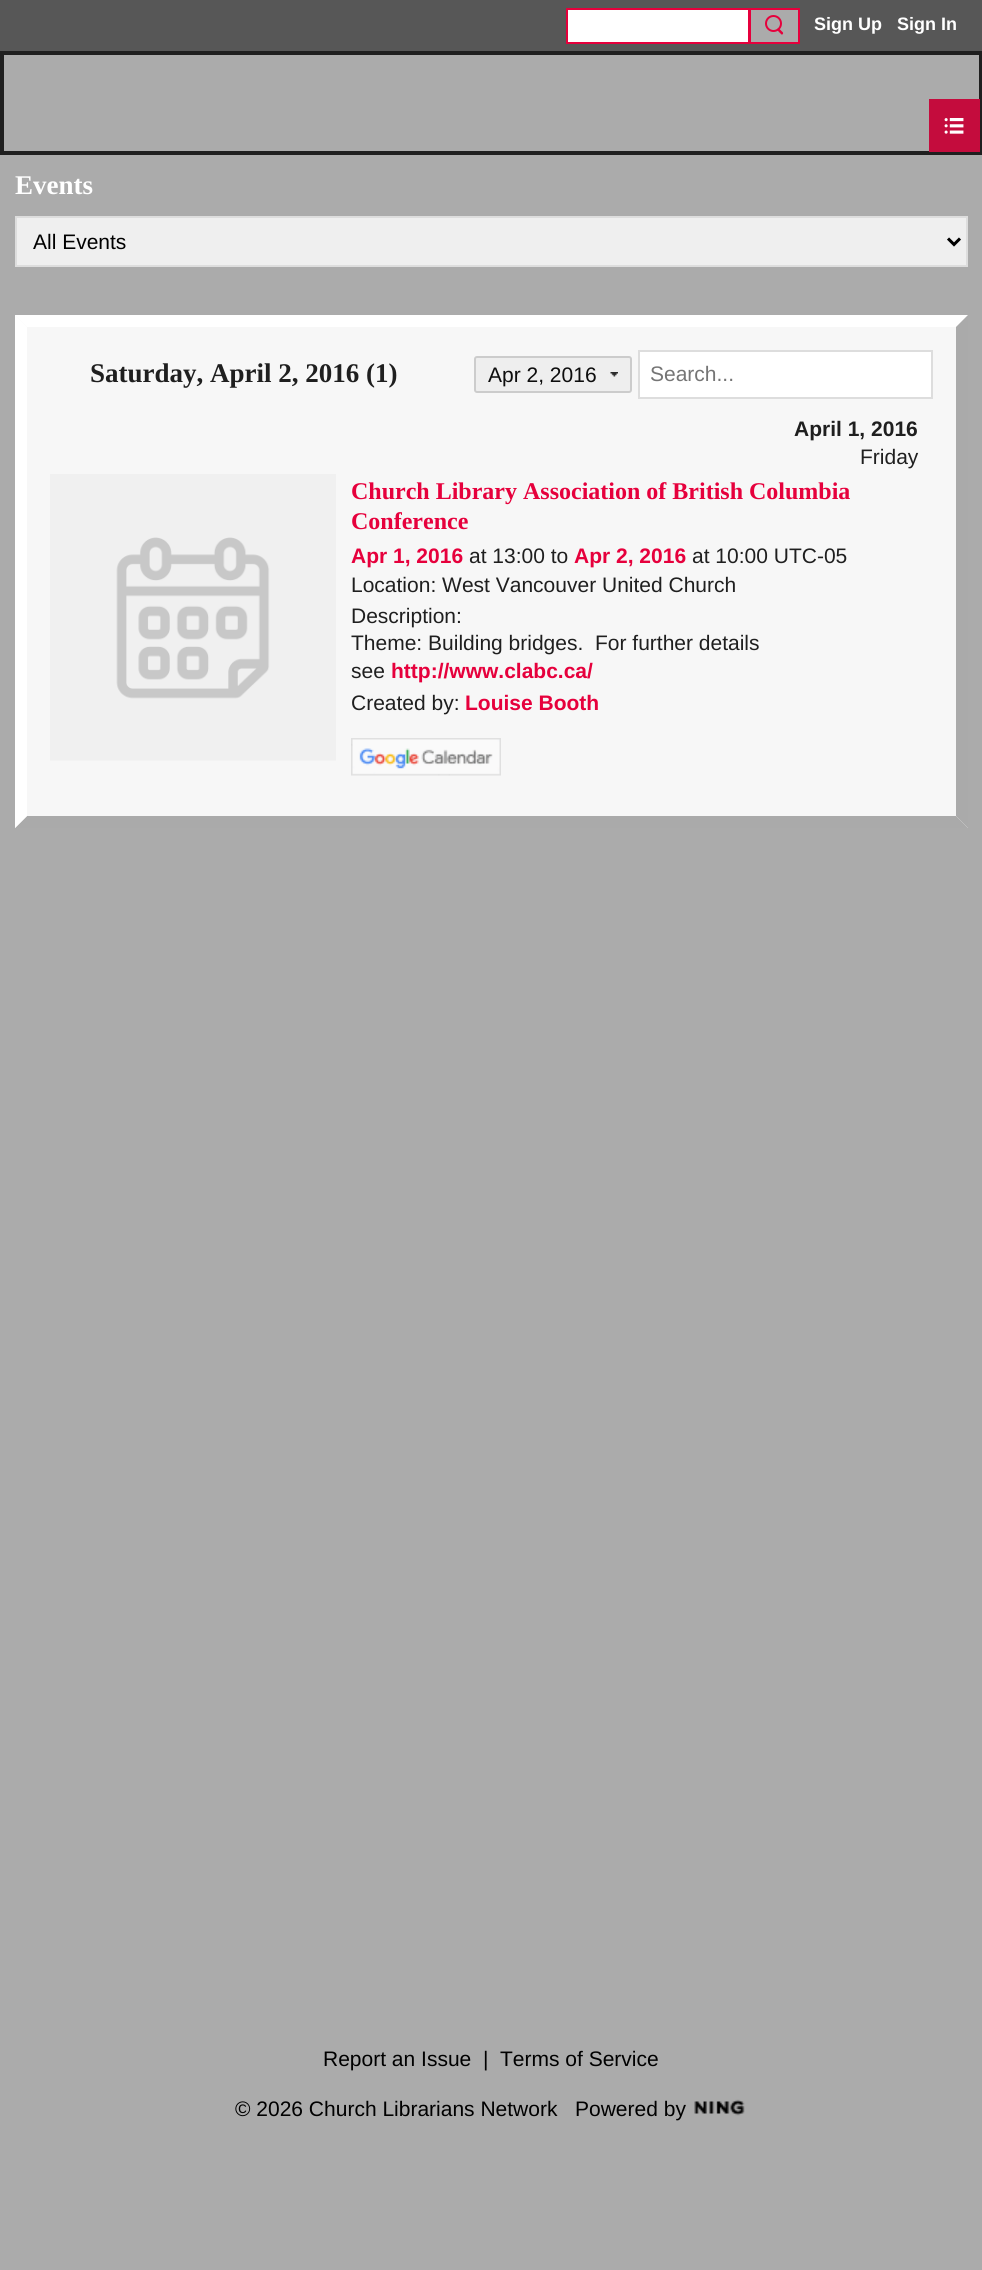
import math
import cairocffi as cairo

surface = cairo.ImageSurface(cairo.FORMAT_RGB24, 982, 2270)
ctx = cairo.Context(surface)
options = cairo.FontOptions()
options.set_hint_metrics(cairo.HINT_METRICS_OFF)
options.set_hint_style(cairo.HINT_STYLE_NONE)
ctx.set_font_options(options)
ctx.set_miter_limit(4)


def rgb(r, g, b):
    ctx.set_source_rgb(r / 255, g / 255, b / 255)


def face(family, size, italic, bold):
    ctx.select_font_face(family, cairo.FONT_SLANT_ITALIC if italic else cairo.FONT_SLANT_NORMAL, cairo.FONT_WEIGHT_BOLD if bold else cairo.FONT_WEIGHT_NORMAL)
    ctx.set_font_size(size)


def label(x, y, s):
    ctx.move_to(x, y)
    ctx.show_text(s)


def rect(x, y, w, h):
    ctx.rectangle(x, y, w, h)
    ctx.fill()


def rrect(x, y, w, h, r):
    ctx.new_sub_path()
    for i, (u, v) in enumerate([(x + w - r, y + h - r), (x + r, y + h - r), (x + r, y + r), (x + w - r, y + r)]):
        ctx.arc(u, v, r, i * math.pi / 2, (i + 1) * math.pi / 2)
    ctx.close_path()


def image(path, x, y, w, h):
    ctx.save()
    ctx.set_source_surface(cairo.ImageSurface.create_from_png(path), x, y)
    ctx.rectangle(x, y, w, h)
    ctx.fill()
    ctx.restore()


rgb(171, 171, 171)
ctx.paint()
rgb(87, 87, 87)
rect(0, 0, 982, 51)
rgb(255, 255, 255)
ctx.rectangle(567, 9, 182, 34)
ctx.fill_preserve()
rgb(230, 0, 60)
ctx.stroke()
rgb(171, 171, 171)
ctx.rectangle(750, 9, 49, 34)
ctx.fill_preserve()
rgb(230, 0, 60)
ctx.stroke()
ctx.arc(773.5, 23.5, 7.5, 0, 2 * math.pi)
ctx.stroke()
ctx.new_path()
ctx.move_to(779.5, 29)
ctx.line_to(783, 32.5)
ctx.curve_to(783.5, 33.5, 782.5, 35, 781.5, 34.5)
ctx.line_to(777.5, 30.5)
ctx.curve_to(776.5, 29, 778.5, 27.5, 779.5, 29)
ctx.close_path()
ctx.fill()
face('Liberation Sans', 18, 0, 1)
rgb(255, 255, 255)
label(814, 30, 'Sign Up')
label(897, 30, 'Sign In')
ctx.rectangle(1, 52, 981, 102)
rgb(31, 31, 31)
ctx.stroke()
ctx.rectangle(3, 54, 977, 98)
ctx.stroke()
rgb(196, 12, 61)
rect(929, 99, 51, 53)
image('image0.png', 944, 118, 20, 16)
face('Liberation Serif', 27, 0, 1)
rgb(255, 255, 255)
label(15, 194, 'Events')
rgb(239, 239, 239)
ctx.rectangle(16, 217, 951, 49)
ctx.fill_preserve()
rgb(221, 221, 221)
ctx.stroke()
ctx.new_path()
ctx.move_to(948, 238.5)
ctx.line_to(954, 244.5)
ctx.line_to(960, 238.5)
rgb(0, 0, 0)
ctx.set_line_width(3)
ctx.stroke()
face('Liberation Sans', 21, 0, 0)
label(33, 249, 'All Events')
rgb(247, 247, 247)
rect(15, 315, 953, 513)
rgb(255, 255, 255)
ctx.new_path()
ctx.move_to(15, 315)
ctx.line_to(968, 315)
ctx.line_to(956, 327)
ctx.line_to(27, 327)
ctx.close_path()
ctx.fill()
rgb(170, 170, 170)
ctx.new_path()
ctx.move_to(968, 315)
ctx.line_to(968, 828)
ctx.line_to(956, 816)
ctx.line_to(956, 327)
ctx.close_path()
ctx.fill()
ctx.new_path()
ctx.move_to(968, 828)
ctx.line_to(15, 828)
ctx.line_to(27, 816)
ctx.line_to(956, 816)
ctx.close_path()
ctx.fill()
rgb(255, 255, 255)
ctx.new_path()
ctx.move_to(15, 828)
ctx.line_to(15, 315)
ctx.line_to(27, 327)
ctx.line_to(27, 816)
ctx.close_path()
ctx.fill()
face('Liberation Serif', 27, 0, 1)
rgb(31, 31, 31)
label(90, 382, 'Saturday, April 2, 2016 (1)')
rgb(238, 238, 238)
rrect(475, 357, 156, 35, 2)
ctx.fill_preserve()
rgb(204, 204, 204)
ctx.set_line_width(2)
ctx.stroke()
face('Liberation Sans', 21, 0, 0)
rgb(13, 13, 13)
label(488, 382, 'Apr 2, 2016')
image('image1.png', 610, 372, 8, 5)
rgb(255, 255, 255)
ctx.rectangle(639, 351, 293, 47)
ctx.fill_preserve()
rgb(221, 221, 221)
ctx.stroke()
rgb(117, 117, 117)
label(650, 381, 'Search...')
face('Liberation Sans', 21, 0, 1)
rgb(31, 31, 31)
label(794, 436, 'April 1, 2016')
face('Liberation Sans', 21, 0, 0)
label(860, 464, 'Friday')
image('image2.png', 50, 474, 286, 287)
face('Liberation Serif', 24, 0, 1)
rgb(230, 0, 60)
label(351, 499, 'Church Library Association of British Columbia')
label(351, 529, 'Conference')
face('Liberation Sans', 21, 0, 1)
label(351, 563, 'Apr 1, 2016')
face('Liberation Sans', 21, 0, 0)
rgb(31, 31, 31)
label(469, 563, 'at 13:00 to')
face('Liberation Sans', 21, 0, 1)
rgb(230, 0, 60)
label(574, 563, 'Apr 2, 2016')
face('Liberation Sans', 21, 0, 0)
rgb(31, 31, 31)
label(692, 563, 'at 10:00 UTC-05')
label(351, 592, 'Location: West Vancouver United Church')
label(351, 623, 'Description:')
label(351, 650, 'Theme: Building bridges.  For further details')
label(351, 678, 'see')
face('Liberation Sans', 21, 0, 1)
rgb(230, 0, 60)
label(391, 678, 'http://www.clabc.ca/')
face('Liberation Sans', 21, 0, 0)
rgb(31, 31, 31)
label(351, 710, 'Created by:')
face('Liberation Sans', 21, 0, 1)
rgb(230, 0, 60)
label(465, 710, 'Louise Booth')
image('image3.png', 351, 738, 150, 38)
face('Liberation Sans', 21, 0, 0)
rgb(0, 0, 0)
label(323, 2066, 'Report an Issue')
label(483, 2066, '|')
label(500, 2066, 'Terms of Service')
label(235, 2116, '© 2026 Church Librarians Network')
label(575, 2116, 'Powered by')
image('image4.png', 694, 2099, 51, 17)
surface.write_to_png('render.png')
